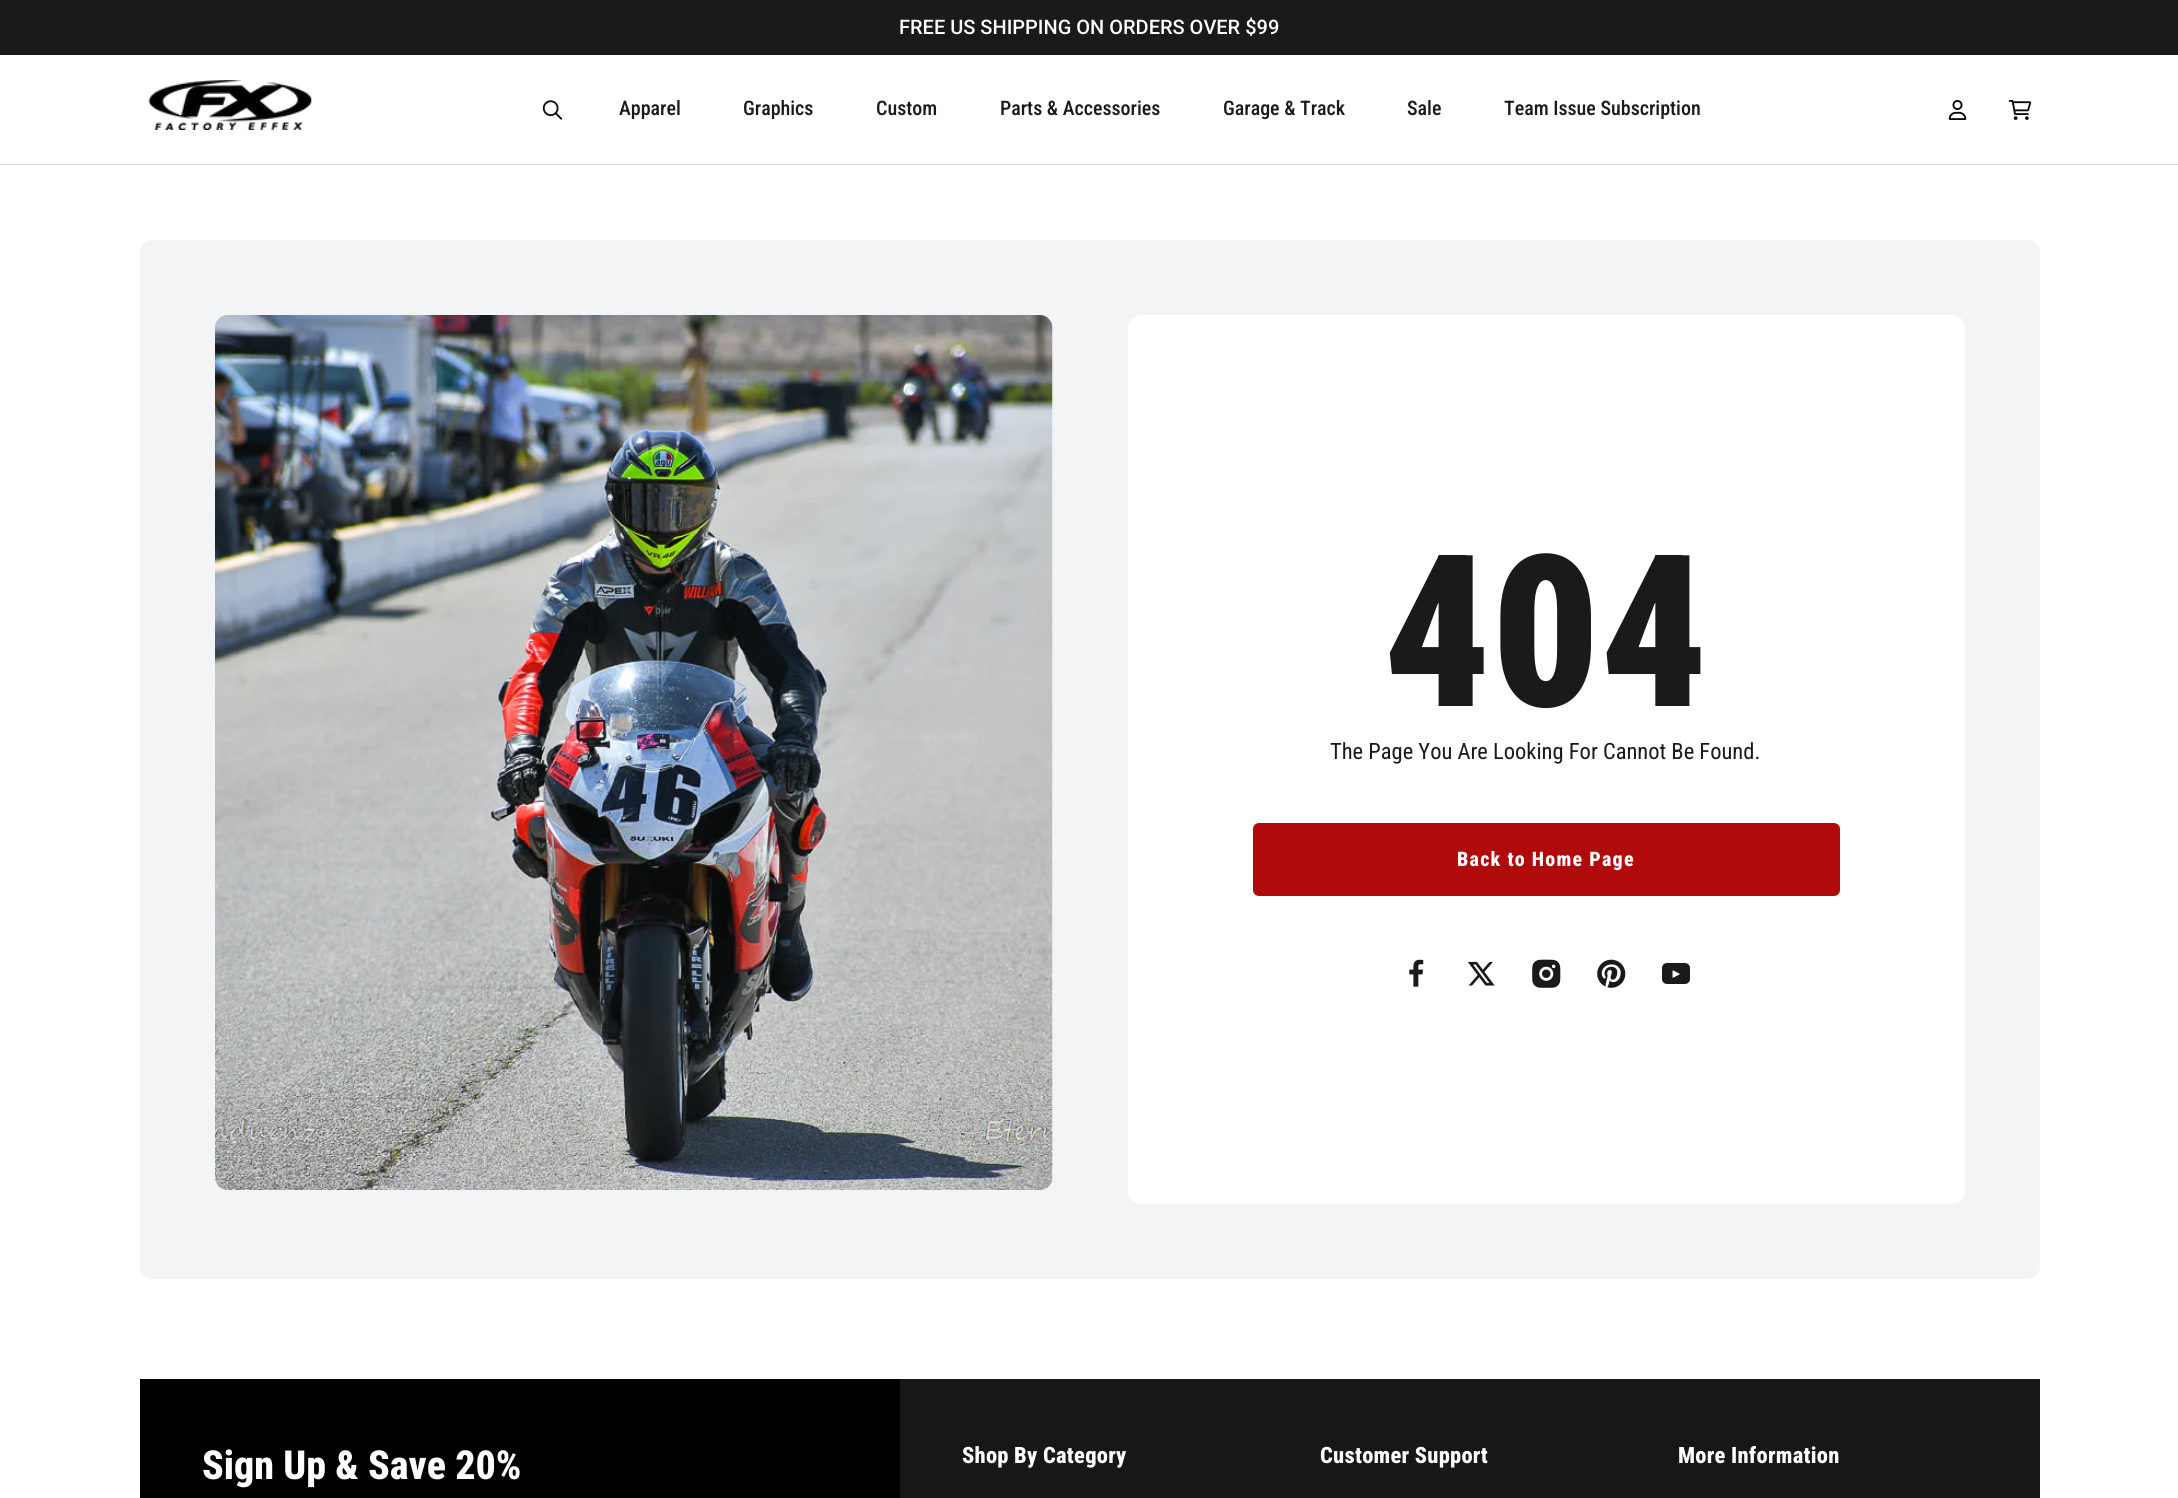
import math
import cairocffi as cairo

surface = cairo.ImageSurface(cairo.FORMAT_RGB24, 2178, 1498)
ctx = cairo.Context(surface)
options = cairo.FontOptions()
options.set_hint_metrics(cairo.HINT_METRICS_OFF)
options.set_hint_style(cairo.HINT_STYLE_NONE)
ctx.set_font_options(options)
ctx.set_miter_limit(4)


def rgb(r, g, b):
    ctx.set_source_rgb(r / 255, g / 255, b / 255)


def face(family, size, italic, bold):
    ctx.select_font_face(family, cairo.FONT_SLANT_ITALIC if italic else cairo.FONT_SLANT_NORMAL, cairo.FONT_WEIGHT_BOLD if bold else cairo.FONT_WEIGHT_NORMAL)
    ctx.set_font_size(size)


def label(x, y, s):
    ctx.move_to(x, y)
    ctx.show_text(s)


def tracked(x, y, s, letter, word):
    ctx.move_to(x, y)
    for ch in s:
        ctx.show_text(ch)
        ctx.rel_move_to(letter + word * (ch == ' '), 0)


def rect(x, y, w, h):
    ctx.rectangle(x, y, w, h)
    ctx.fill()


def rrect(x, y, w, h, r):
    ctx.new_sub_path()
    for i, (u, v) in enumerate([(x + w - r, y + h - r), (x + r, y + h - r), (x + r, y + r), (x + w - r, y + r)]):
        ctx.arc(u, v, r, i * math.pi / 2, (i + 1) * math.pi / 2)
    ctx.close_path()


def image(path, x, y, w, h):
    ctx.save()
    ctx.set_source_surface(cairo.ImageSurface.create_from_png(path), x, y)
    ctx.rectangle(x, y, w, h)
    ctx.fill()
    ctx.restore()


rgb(255, 255, 255)
ctx.paint()
rgb(26, 26, 26)
rect(0, 0, 2178, 55)
face('Roboto Medium', 20, 0, 0)
rgb(255, 255, 255)
label(899, 34, 'FREE US SHIPPING ON ORDERS OVER $99')
rgb(221, 221, 221)
rect(0, 164, 2178, 1)
image('image0.png', 148, 80, 164, 50)
image('image1.png', 542, 100, 21, 20)
face('Roboto Condensed Medium', 20, 0, 0)
rgb(26, 26, 26)
label(619, 115, 'Apparel')
label(743, 115, 'Graphics')
label(876, 115, 'Custom')
label(1000, 115, 'Parts & Accessories')
label(1223, 115, 'Garage & Track')
label(1407, 115, 'Sale')
label(1504, 115, 'Team Issue Subscription')
image('image2.png', 1948, 100, 19, 20)
image('image3.png', 2008, 100, 24, 20)
rgb(242, 244, 245)
rrect(140, 240, 1900, 1039, 13)
ctx.fill()
image('image4.png', 215, 315, 838, 875)
rgb(255, 255, 255)
rrect(1128, 315, 837, 889, 13)
ctx.fill()
face('Roboto Condensed Black', 212, 0, 0)
rgb(26, 26, 26)
label(1383, 706, '404')
face('Roboto Condensed', 22.5, 0, 0)
label(1330, 759, 'The Page You Are Looking For Cannot Be Found.')
rgb(177, 10, 10)
rrect(1253, 823, 587, 73, 6)
ctx.fill()
face('Roboto Condensed ExtraBold', 20, 0, 0)
rgb(255, 255, 255)
tracked(1457, 866, 'Back to Home Page', 1.25, 0)
image('image5.png', 1409, 959, 15, 28)
image('image6.png', 1468, 961, 27, 25)
image('image7.png', 1532, 959, 29, 29)
image('image8.png', 1597, 959, 29, 29)
image('image9.png', 1662, 963, 28, 21)
rgb(0, 0, 0)
rect(140, 1379, 760, 119)
face('Roboto Condensed ExtraBold', 40, 0, 0)
rgb(255, 255, 255)
label(202, 1479, 'Sign Up & Save 20%')
rgb(23, 23, 23)
rect(900, 1379, 1140, 119)
face('Roboto Condensed ExtraBold', 22.5, 0, 0)
rgb(255, 255, 255)
tracked(962, 1463, 'Shop By Category', 0.25, 0)
tracked(1320, 1463, 'Customer Support', 0.25, 0)
tracked(1678, 1463, 'More Information', 0.25, 0)
surface.write_to_png('render.png')
